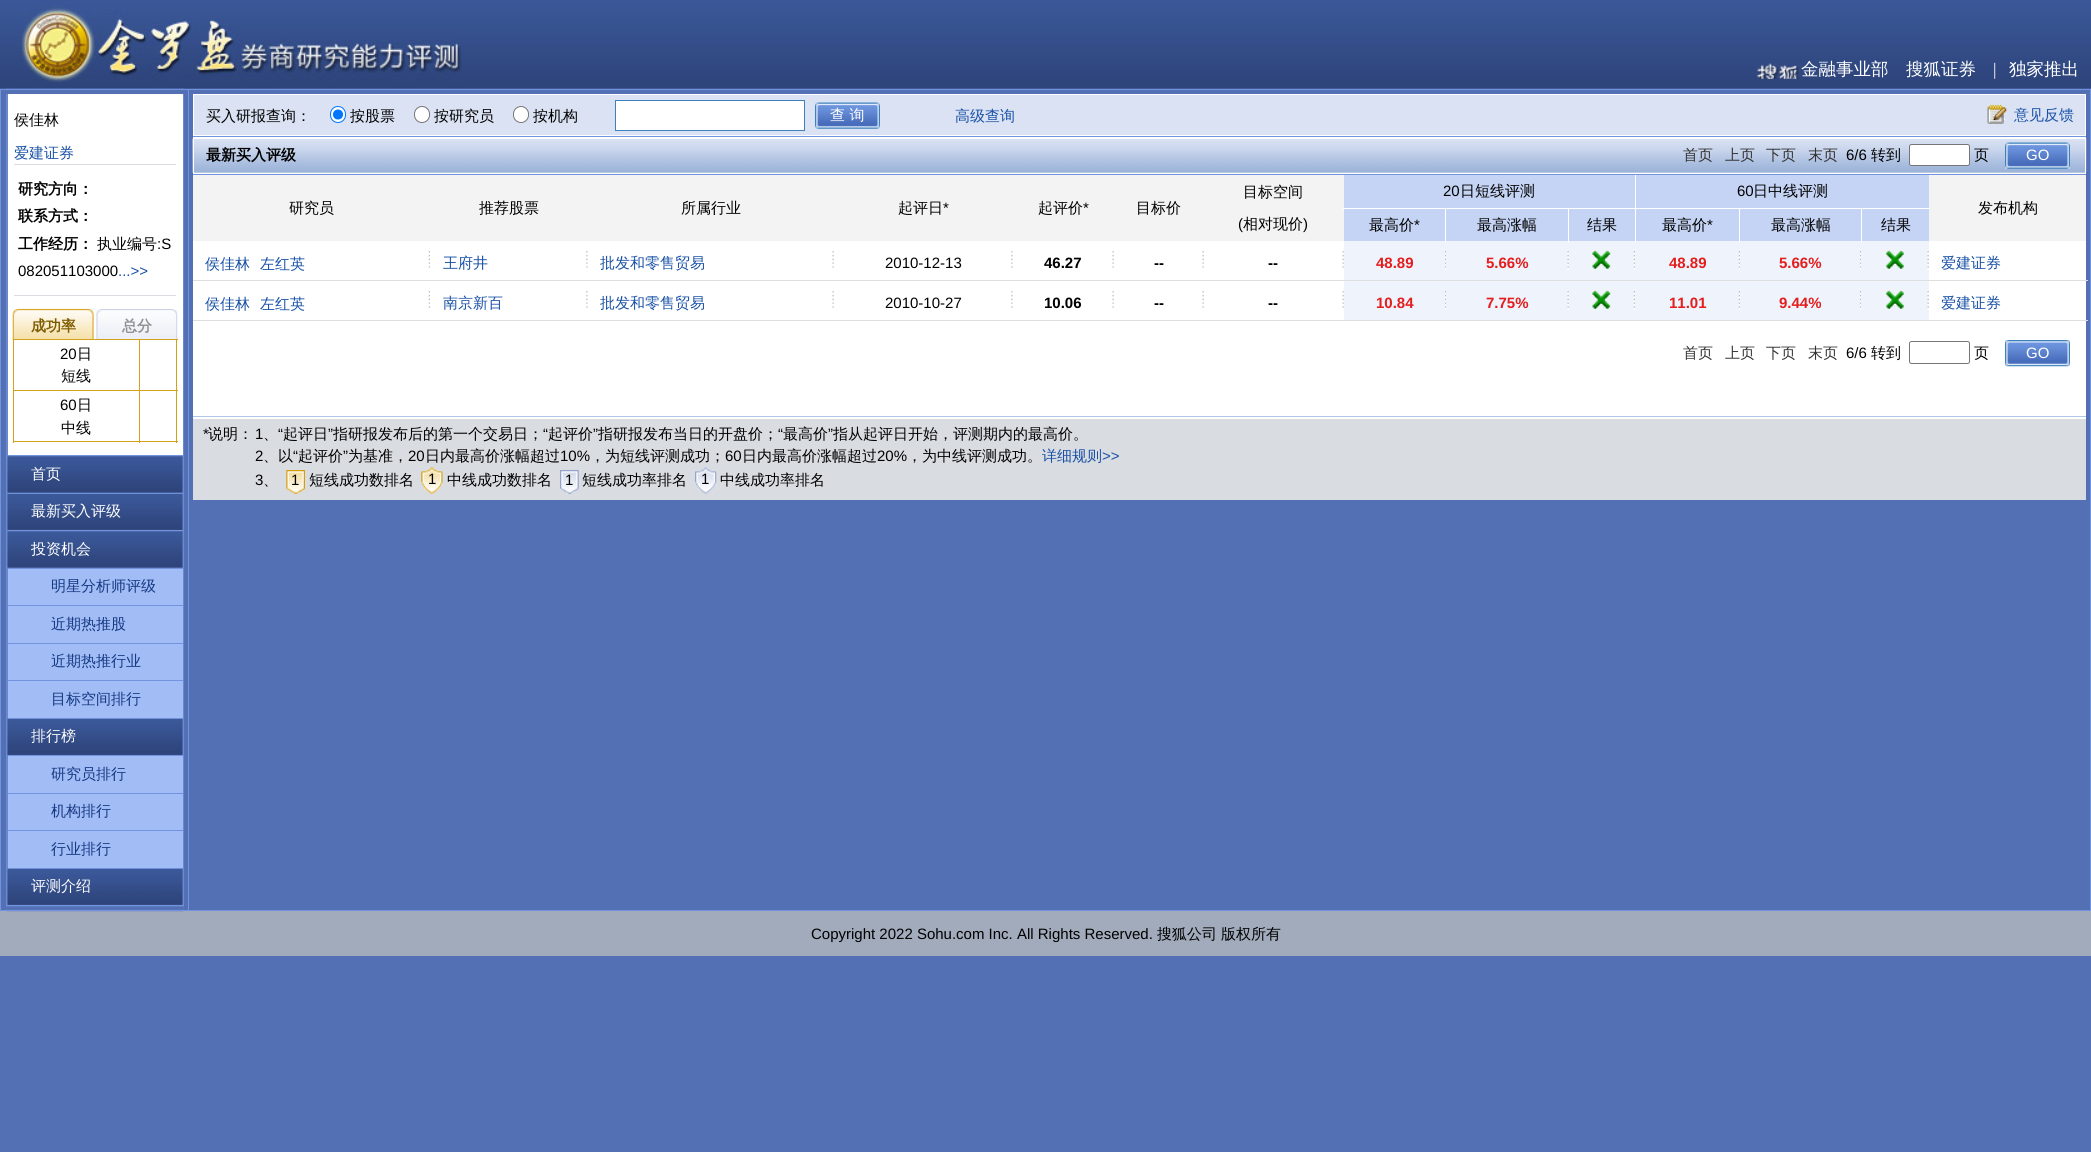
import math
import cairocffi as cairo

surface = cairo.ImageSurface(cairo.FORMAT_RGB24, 2091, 1152)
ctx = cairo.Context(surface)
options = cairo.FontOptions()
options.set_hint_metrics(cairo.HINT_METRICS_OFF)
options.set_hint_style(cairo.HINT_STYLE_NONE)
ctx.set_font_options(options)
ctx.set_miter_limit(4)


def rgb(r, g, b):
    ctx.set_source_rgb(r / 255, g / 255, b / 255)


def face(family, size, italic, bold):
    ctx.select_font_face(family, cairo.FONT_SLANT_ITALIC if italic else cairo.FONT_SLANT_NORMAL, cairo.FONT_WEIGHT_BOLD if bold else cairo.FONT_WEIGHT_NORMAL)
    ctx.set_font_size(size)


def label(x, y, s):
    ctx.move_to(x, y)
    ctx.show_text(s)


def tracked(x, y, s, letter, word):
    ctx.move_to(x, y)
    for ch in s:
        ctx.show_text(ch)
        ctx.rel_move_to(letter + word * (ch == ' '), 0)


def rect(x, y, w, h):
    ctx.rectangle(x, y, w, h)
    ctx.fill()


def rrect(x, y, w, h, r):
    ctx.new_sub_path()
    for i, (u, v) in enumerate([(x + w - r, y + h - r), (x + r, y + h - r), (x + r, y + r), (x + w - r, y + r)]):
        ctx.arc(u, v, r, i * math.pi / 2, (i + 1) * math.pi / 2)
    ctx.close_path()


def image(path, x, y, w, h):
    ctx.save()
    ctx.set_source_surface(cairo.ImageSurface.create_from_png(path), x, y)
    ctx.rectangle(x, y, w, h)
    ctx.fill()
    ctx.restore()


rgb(84, 112, 180)
ctx.paint()
image('image0.png', 0, 0, 2091, 89)
image('image1.png', 20, 0, 442, 83)
image('image2.png', 1756, 63, 45, 16)
face('WenQuanYi Zen Hei Medium', 17.5, 0, 0)
rgb(255, 255, 255)
label(1801, 75, '金融事业部')
label(1906, 75, '搜狐证券')
face('Liberation Serif', 17.5, 0, 0)
label(1993, 75, '|')
face('WenQuanYi Zen Hei Medium', 17.5, 0, 0)
label(2009, 75, '独家推出')
rgb(161, 171, 187)
rect(0, 911, 2091, 45)
image('image3.png', 6, 88, 178, 824)
ctx.rectangle(0.5, 89.5, 2090, 821)
rgb(114, 147, 221)
ctx.set_line_width(1)
ctx.stroke()
image('image4.png', 6, 904, 178, 6)
rgb(84, 112, 180)
rect(5, 90, 180, 4)
rgb(255, 255, 255)
rect(8, 94, 175, 361)
rgb(217, 220, 225)
rect(14, 164, 162, 1)
face('WenQuanYi Zen Hei Medium', 15, 0, 0)
rgb(0, 0, 0)
label(14, 125, '侯佳林')
rgb(25, 81, 166)
label(14, 158, '爱建证券')
rgb(217, 220, 225)
rect(14, 295, 162, 1)
face('WenQuanYi Zen Hei', 15, 0, 1)
rgb(0, 0, 0)
label(18, 194, '研究方向：')
label(18, 221, '联系方式：')
label(18, 249, '工作经历：')
face('WenQuanYi Zen Hei Medium', 15, 0, 0)
label(97, 249, '执业编号')
face('Liberation Sans', 15, 0, 0)
label(157, 249, ':S')
label(18, 276, '082051103000')
rgb(25, 81, 166)
label(118, 276, '...>>')
image('image5.png', 12, 308, 82, 32)
face('WenQuanYi Zen Hei', 15, 0, 1)
rgb(126, 92, 0)
label(31, 331, '成功率')
image('image6.png', 96, 309, 82, 30)
rgb(143, 144, 145)
label(122, 331, '总分')
rgb(213, 161, 24)
rect(139, 339, 39, 1)
rect(139, 390, 39, 1)
rect(176, 390, 1, 53)
rect(139, 441, 39, 1)
rect(139, 390, 1, 53)
rect(13, 390, 127, 1)
rect(139, 339, 1, 52)
rect(13, 339, 127, 1)
rect(13, 441, 127, 1)
rect(13, 390, 1, 53)
rect(13, 339, 1, 52)
face('Liberation Sans', 15, 0, 0)
rgb(0, 0, 0)
label(60, 359, '20')
face('WenQuanYi Zen Hei Medium', 15, 0, 0)
label(77, 359, '日')
label(61, 381, '短线')
rgb(213, 161, 24)
rect(176, 339, 1, 52)
face('Liberation Sans', 15, 0, 0)
rgb(0, 0, 0)
label(60, 410, '60')
face('WenQuanYi Zen Hei Medium', 15, 0, 0)
label(77, 410, '日')
label(61, 433, '中线')
rgb(114, 147, 221)
rect(8, 455, 175, 1)
image('image7.png', 7, 456, 176, 37)
rect(8, 493, 175, 1)
rgb(255, 255, 255)
label(31, 479, '首页')
image('image8.png', 7, 493, 176, 38)
rgb(114, 147, 221)
rect(8, 530, 175, 1)
rgb(255, 255, 255)
label(31, 516, '最新买入评级')
image('image7.png', 7, 531, 176, 37)
rgb(114, 147, 221)
rect(8, 568, 175, 1)
rgb(255, 255, 255)
label(31, 554, '投资机会')
rgb(162, 188, 246)
rect(8, 569, 175, 36)
rgb(114, 147, 221)
rect(8, 605, 175, 1)
rgb(21, 57, 130)
label(51, 591, '明星分析师评级')
rgb(162, 188, 246)
rect(8, 606, 175, 37)
rgb(114, 147, 221)
rect(8, 643, 175, 1)
rgb(21, 57, 130)
label(51, 629, '近期热推股')
rgb(162, 188, 246)
rect(8, 644, 175, 36)
rgb(114, 147, 221)
rect(8, 680, 175, 1)
rgb(21, 57, 130)
label(51, 666, '近期热推行业')
rgb(162, 188, 246)
rect(8, 681, 175, 37)
rgb(114, 147, 221)
rect(8, 718, 175, 1)
rgb(21, 57, 130)
label(51, 704, '目标空间排行')
image('image9.png', 7, 718, 176, 38)
rgb(114, 147, 221)
rect(8, 755, 175, 1)
rgb(255, 255, 255)
label(31, 741, '排行榜')
rgb(162, 188, 246)
rect(8, 756, 175, 37)
rgb(114, 147, 221)
rect(8, 793, 175, 1)
rgb(21, 57, 130)
label(51, 779, '研究员排行')
rgb(162, 188, 246)
rect(8, 794, 175, 36)
rgb(114, 147, 221)
rect(8, 830, 175, 1)
rgb(21, 57, 130)
label(51, 816, '机构排行')
rgb(162, 188, 246)
rect(8, 831, 175, 37)
rgb(114, 147, 221)
rect(8, 868, 175, 1)
rgb(21, 57, 130)
label(51, 854, '行业排行')
image('image10.png', 7, 868, 176, 38)
rgb(114, 147, 221)
rect(8, 905, 175, 1)
rgb(255, 255, 255)
label(31, 891, '评测介绍')
rgb(114, 147, 221)
rect(188, 90, 1, 820)
rgb(255, 255, 255)
rect(193, 137, 1893, 282)
rgb(113, 146, 220)
rect(193, 136, 1893, 1)
rgb(218, 226, 243)
ctx.rectangle(193.5, 94.5, 1892, 41)
ctx.fill_preserve()
rgb(255, 255, 255)
ctx.stroke()
rgb(0, 0, 0)
label(206, 121, '买入研报查询：')
rgb(255, 255, 255)
rrect(330.5, 106.5, 15, 16, 7.5)
ctx.fill_preserve()
rgb(0, 117, 255)
ctx.stroke()
ctx.arc(338, 114.5, 5, 0, 2 * math.pi)
ctx.fill()
rgb(0, 0, 0)
label(350, 121, '按股票')
rgb(255, 255, 255)
rrect(414.5, 106.5, 15, 16, 7.5)
ctx.fill_preserve()
rgb(118, 118, 118)
ctx.stroke()
rgb(0, 0, 0)
label(434, 121, '按研究员')
rgb(255, 255, 255)
rrect(513.5, 106.5, 15, 16, 7.5)
ctx.fill_preserve()
rgb(118, 118, 118)
ctx.stroke()
rgb(0, 0, 0)
label(533, 121, '按机构')
rgb(255, 255, 255)
ctx.rectangle(615.5, 100.5, 189, 30)
ctx.fill_preserve()
rgb(60, 129, 187)
ctx.stroke()
image('image11.png', 815, 102, 65, 27)
rgb(255, 255, 255)
label(830, 120, '查 询')
rgb(25, 81, 166)
label(955, 121, '高级查询')
image('image12.png', 1987, 104, 20, 20)
label(2014, 120, '意见反馈')
rgb(221, 221, 221)
rect(194, 172, 1891, 1)
rgb(114, 147, 221)
rect(193, 174, 1893, 1)
image('image13.png', 192, 138, 1895, 35)
ctx.rectangle(193.5, 138.5, 1892, 35)
rgb(255, 255, 255)
ctx.stroke()
face('WenQuanYi Zen Hei', 15, 0, 1)
rgb(0, 0, 0)
label(206, 160, '最新买入评级')
face('WenQuanYi Zen Hei Medium', 15, 0, 0)
rgb(51, 51, 51)
label(1683, 160, '首页')
label(1725, 160, '上页')
label(1766, 160, '下页')
label(1808, 160, '末页')
face('Liberation Sans', 15, 0, 0)
rgb(0, 0, 0)
label(1846, 160, '6/6')
face('WenQuanYi Zen Hei Medium', 15, 0, 0)
label(1871, 160, '转到')
rgb(255, 255, 255)
rrect(1909.5, 144.5, 60, 21, 2)
ctx.fill_preserve()
rgb(118, 118, 118)
ctx.stroke()
rgb(0, 0, 0)
label(1974, 160, '页')
image('image14.png', 2005, 142, 65, 27)
face('Liberation Sans', 15, 0, 0)
rgb(255, 255, 255)
label(2026, 160, 'GO')
rgb(243, 243, 243)
rect(193, 175, 1151, 66)
face('WenQuanYi Zen Hei Medium', 15, 0, 0)
rgb(0, 0, 0)
label(289, 213, '研究员')
label(479, 213, '推荐股票')
label(681, 213, '所属行业')
label(898, 213, '起评日')
face('Liberation Sans', 15, 0, 0)
label(943, 213, '*')
face('WenQuanYi Zen Hei Medium', 15, 0, 0)
label(1038, 213, '起评价')
face('Liberation Sans', 15, 0, 0)
label(1083, 213, '*')
face('WenQuanYi Zen Hei Medium', 15, 0, 0)
label(1136, 213, '目标价')
label(1243, 197, '目标空间')
face('Liberation Sans', 15, 0, 0)
label(1238, 229, '(')
face('WenQuanYi Zen Hei Medium', 15, 0, 0)
label(1243, 229, '相对现价')
face('Liberation Sans', 15, 0, 0)
label(1303, 229, ')')
rgb(197, 212, 244)
rect(1344, 175, 291, 33)
rgb(255, 255, 255)
rect(1343, 208, 1, 1)
rgb(0, 0, 0)
label(1443, 196, '20')
face('WenQuanYi Zen Hei Medium', 15, 0, 0)
label(1460, 196, '日短线评测')
rgb(197, 212, 244)
rect(1636, 175, 293, 33)
rgb(243, 243, 243)
rect(1929, 175, 157, 66)
rgb(255, 255, 255)
rect(1929, 208, 1, 1)
face('Liberation Sans', 15, 0, 0)
rgb(0, 0, 0)
label(1737, 196, '60')
face('WenQuanYi Zen Hei Medium', 15, 0, 0)
label(1753, 196, '日中线评测')
label(1978, 213, '发布机构')
rgb(197, 212, 244)
rect(1344, 209, 101, 32)
rgb(238, 243, 252)
rect(1344, 241, 585, 39)
rgb(255, 255, 255)
rect(1445, 241, 1, 2)
rgb(0, 0, 0)
label(1369, 230, '最高价')
face('Liberation Sans', 15, 0, 0)
label(1414, 230, '*')
rgb(197, 212, 244)
rect(1446, 209, 122, 32)
rgb(255, 255, 255)
rect(1568, 241, 1, 2)
face('WenQuanYi Zen Hei Medium', 15, 0, 0)
rgb(0, 0, 0)
label(1477, 230, '最高涨幅')
rgb(197, 212, 244)
rect(1569, 209, 66, 32)
rgb(255, 255, 255)
rect(1635, 241, 1, 2)
rgb(0, 0, 0)
label(1587, 230, '结果')
rgb(197, 212, 244)
rect(1636, 209, 103, 32)
rgb(255, 255, 255)
rect(1739, 241, 1, 2)
rgb(0, 0, 0)
label(1662, 230, '最高价')
face('Liberation Sans', 15, 0, 0)
label(1707, 230, '*')
rgb(197, 212, 244)
rect(1740, 209, 121, 32)
rgb(255, 255, 255)
rect(1861, 241, 1, 2)
face('WenQuanYi Zen Hei Medium', 15, 0, 0)
rgb(0, 0, 0)
label(1771, 230, '最高涨幅')
rgb(197, 212, 244)
rect(1862, 209, 67, 32)
rgb(0, 0, 0)
label(1881, 230, '结果')
image('image15.png', 428, 251, 2, 17)
rgb(25, 81, 166)
label(205, 269, '侯佳林')
label(260, 269, '左红英')
image('image16.png', 586, 251, 2, 17)
label(443, 268, '王府井')
image('image17.png', 832, 251, 2, 17)
label(600, 268, '批发和零售贸易')
image('image16.png', 1011, 251, 2, 17)
face('Liberation Sans', 15, 0, 0)
rgb(0, 0, 0)
label(885, 268, '2010-12-13')
image('image17.png', 1112, 251, 2, 17)
face('Liberation Sans', 15, 0, 1)
label(1044, 268, '46.27')
image('image17.png', 1202, 251, 2, 17)
label(1154, 268, '--')
image('image17.png', 1342, 251, 2, 17)
label(1268, 268, '--')
image('image18.png', 1445, 251, 1, 19)
rgb(228, 29, 29)
label(1376, 268, '48.89')
image('image19.png', 1567, 251, 2, 19)
label(1486, 268, '5.66%')
image('image20.png', 1633, 251, 2, 19)
image('image21.png', 1591, 250, 21, 19)
image('image20.png', 1738, 251, 2, 19)
label(1669, 268, '48.89')
image('image18.png', 1860, 251, 1, 19)
label(1779, 268, '5.66%')
image('image19.png', 1927, 251, 2, 19)
image('image22.png', 1885, 250, 20, 19)
rgb(222, 222, 222)
rect(193, 280, 1895, 1)
face('WenQuanYi Zen Hei Medium', 15, 0, 0)
rgb(25, 81, 166)
label(1941, 268, '爱建证券')
image('image23.png', 428, 291, 2, 17)
label(205, 309, '侯佳林')
label(260, 309, '左红英')
image('image24.png', 586, 291, 2, 17)
label(443, 308, '南京新百')
image('image25.png', 832, 291, 2, 17)
label(600, 308, '批发和零售贸易')
image('image24.png', 1011, 291, 2, 17)
face('Liberation Sans', 15, 0, 0)
rgb(0, 0, 0)
label(885, 308, '2010-10-27')
image('image25.png', 1112, 291, 2, 17)
face('Liberation Sans', 15, 0, 1)
label(1044, 308, '10.06')
image('image25.png', 1202, 291, 2, 17)
label(1154, 308, '--')
image('image25.png', 1342, 291, 2, 17)
label(1268, 308, '--')
rgb(238, 243, 252)
rect(1344, 281, 585, 39)
image('image26.png', 1445, 291, 1, 19)
rgb(228, 29, 29)
label(1376, 308, '10.84')
image('image27.png', 1567, 291, 2, 19)
label(1486, 308, '7.75%')
image('image28.png', 1633, 291, 2, 19)
image('image29.png', 1591, 290, 21, 19)
image('image28.png', 1738, 291, 2, 19)
label(1669, 308, '11.01')
image('image26.png', 1860, 291, 1, 19)
label(1779, 308, '9.44%')
image('image27.png', 1927, 291, 2, 19)
image('image30.png', 1885, 290, 20, 19)
rgb(222, 222, 222)
rect(193, 320, 1895, 1)
face('WenQuanYi Zen Hei Medium', 15, 0, 0)
rgb(25, 81, 166)
label(1941, 308, '爱建证券')
rgb(51, 51, 51)
label(1683, 358, '首页')
label(1725, 358, '上页')
label(1766, 358, '下页')
label(1808, 358, '末页')
face('Liberation Sans', 15, 0, 0)
rgb(0, 0, 0)
label(1846, 358, '6/6')
face('WenQuanYi Zen Hei Medium', 15, 0, 0)
label(1871, 358, '转到')
rrect(1909.5, 341.5, 60, 22, 2)
rgb(118, 118, 118)
ctx.stroke()
rgb(0, 0, 0)
label(1974, 358, '页')
image('image31.png', 2005, 340, 65, 27)
face('Liberation Sans', 15, 0, 0)
rgb(255, 255, 255)
label(2026, 358, 'GO')
rgb(177, 198, 232)
rect(193, 416, 1893, 1)
rgb(217, 220, 225)
rect(193, 419, 1893, 81)
rgb(0, 0, 0)
label(203, 439, '*')
face('WenQuanYi Zen Hei Medium', 15, 0, 0)
label(208, 439, '说明：')
face('Liberation Sans', 15, 0, 0)
label(255, 439, '1')
label(278, 439, '“')
face('WenQuanYi Zen Hei Medium', 15, 0, 0)
label(283, 439, '起评日')
face('Liberation Sans', 15, 0, 0)
label(328, 439, '”')
face('WenQuanYi Zen Hei Medium', 15, 0, 0)
label(333, 439, '指研报发布后的第一个交易日；')
face('Liberation Sans', 15, 0, 0)
label(543, 439, '“')
face('WenQuanYi Zen Hei Medium', 15, 0, 0)
label(548, 439, '起评价')
face('Liberation Sans', 15, 0, 0)
label(593, 439, '”')
face('WenQuanYi Zen Hei Medium', 15, 0, 0)
label(598, 439, '指研报发布当日的开盘价；')
face('Liberation Sans', 15, 0, 0)
label(778, 439, '“')
face('WenQuanYi Zen Hei Medium', 15, 0, 0)
label(783, 439, '最高价')
face('Liberation Sans', 15, 0, 0)
label(828, 439, '”')
face('WenQuanYi Zen Hei Medium', 15, 0, 0)
label(833, 439, '指从起评日开始，评测期内的最高价。')
label(263, 439, '、')
face('Liberation Sans', 15, 0, 0)
label(255, 461, '2')
face('WenQuanYi Zen Hei Medium', 15, 0, 0)
label(263, 461, '、以')
face('Liberation Sans', 15, 0, 0)
label(293, 461, '“')
face('WenQuanYi Zen Hei Medium', 15, 0, 0)
label(298, 461, '起评价')
face('Liberation Sans', 15, 0, 0)
label(343, 461, '”')
face('WenQuanYi Zen Hei Medium', 15, 0, 0)
label(348, 461, '为基准，')
face('Liberation Sans', 15, 0, 0)
label(408, 461, '20')
face('WenQuanYi Zen Hei Medium', 15, 0, 0)
label(425, 461, '日内最高价涨幅超过')
face('Liberation Sans', 15, 0, 0)
label(560, 461, '10%')
face('WenQuanYi Zen Hei Medium', 15, 0, 0)
label(590, 461, '，为短线评测成功；')
face('Liberation Sans', 15, 0, 0)
label(725, 461, '60')
face('WenQuanYi Zen Hei Medium', 15, 0, 0)
label(742, 461, '日内最高价涨幅超过')
face('Liberation Sans', 15, 0, 0)
label(877, 461, '20%')
face('WenQuanYi Zen Hei Medium', 15, 0, 0)
label(907, 461, '，为中线评测成功。')
rgb(25, 81, 166)
label(1042, 461, '详细规则')
face('Liberation Sans', 15, 0, 0)
label(1102, 461, '>>')
rgb(0, 0, 0)
label(255, 485, '3')
face('WenQuanYi Zen Hei Medium', 15, 0, 0)
label(263, 485, '、')
image('image32.png', 286, 470, 19, 24)
face('Liberation Sans', 15, 0, 0)
tracked(291, 485, '1', -2, 0)
face('WenQuanYi Zen Hei Medium', 15, 0, 0)
label(309, 485, '短线成功数排名')
image('image33.png', 421, 467, 22, 27)
face('Liberation Sans', 15, 0, 0)
tracked(428, 484, '1', -2, 0)
face('WenQuanYi Zen Hei Medium', 15, 0, 0)
label(447, 485, '中线成功数排名')
image('image34.png', 560, 470, 19, 24)
face('Liberation Sans', 15, 0, 0)
tracked(565, 485, '1', -2, 0)
face('WenQuanYi Zen Hei Medium', 15, 0, 0)
label(582, 485, '短线成功率排名')
image('image35.png', 695, 467, 22, 27)
face('Liberation Sans', 15, 0, 0)
tracked(701, 484, '1', -2, 0)
face('WenQuanYi Zen Hei Medium', 15, 0, 0)
label(720, 485, '中线成功率排名')
face('Liberation Sans', 15, 0, 0)
label(811, 939, 'Copyright 2022 Sohu.com Inc. All Rights Reserved.')
face('WenQuanYi Zen Hei Medium', 15, 0, 0)
label(1157, 939, '搜狐公司')
label(1221, 939, '版权所有')
surface.write_to_png('render.png')
